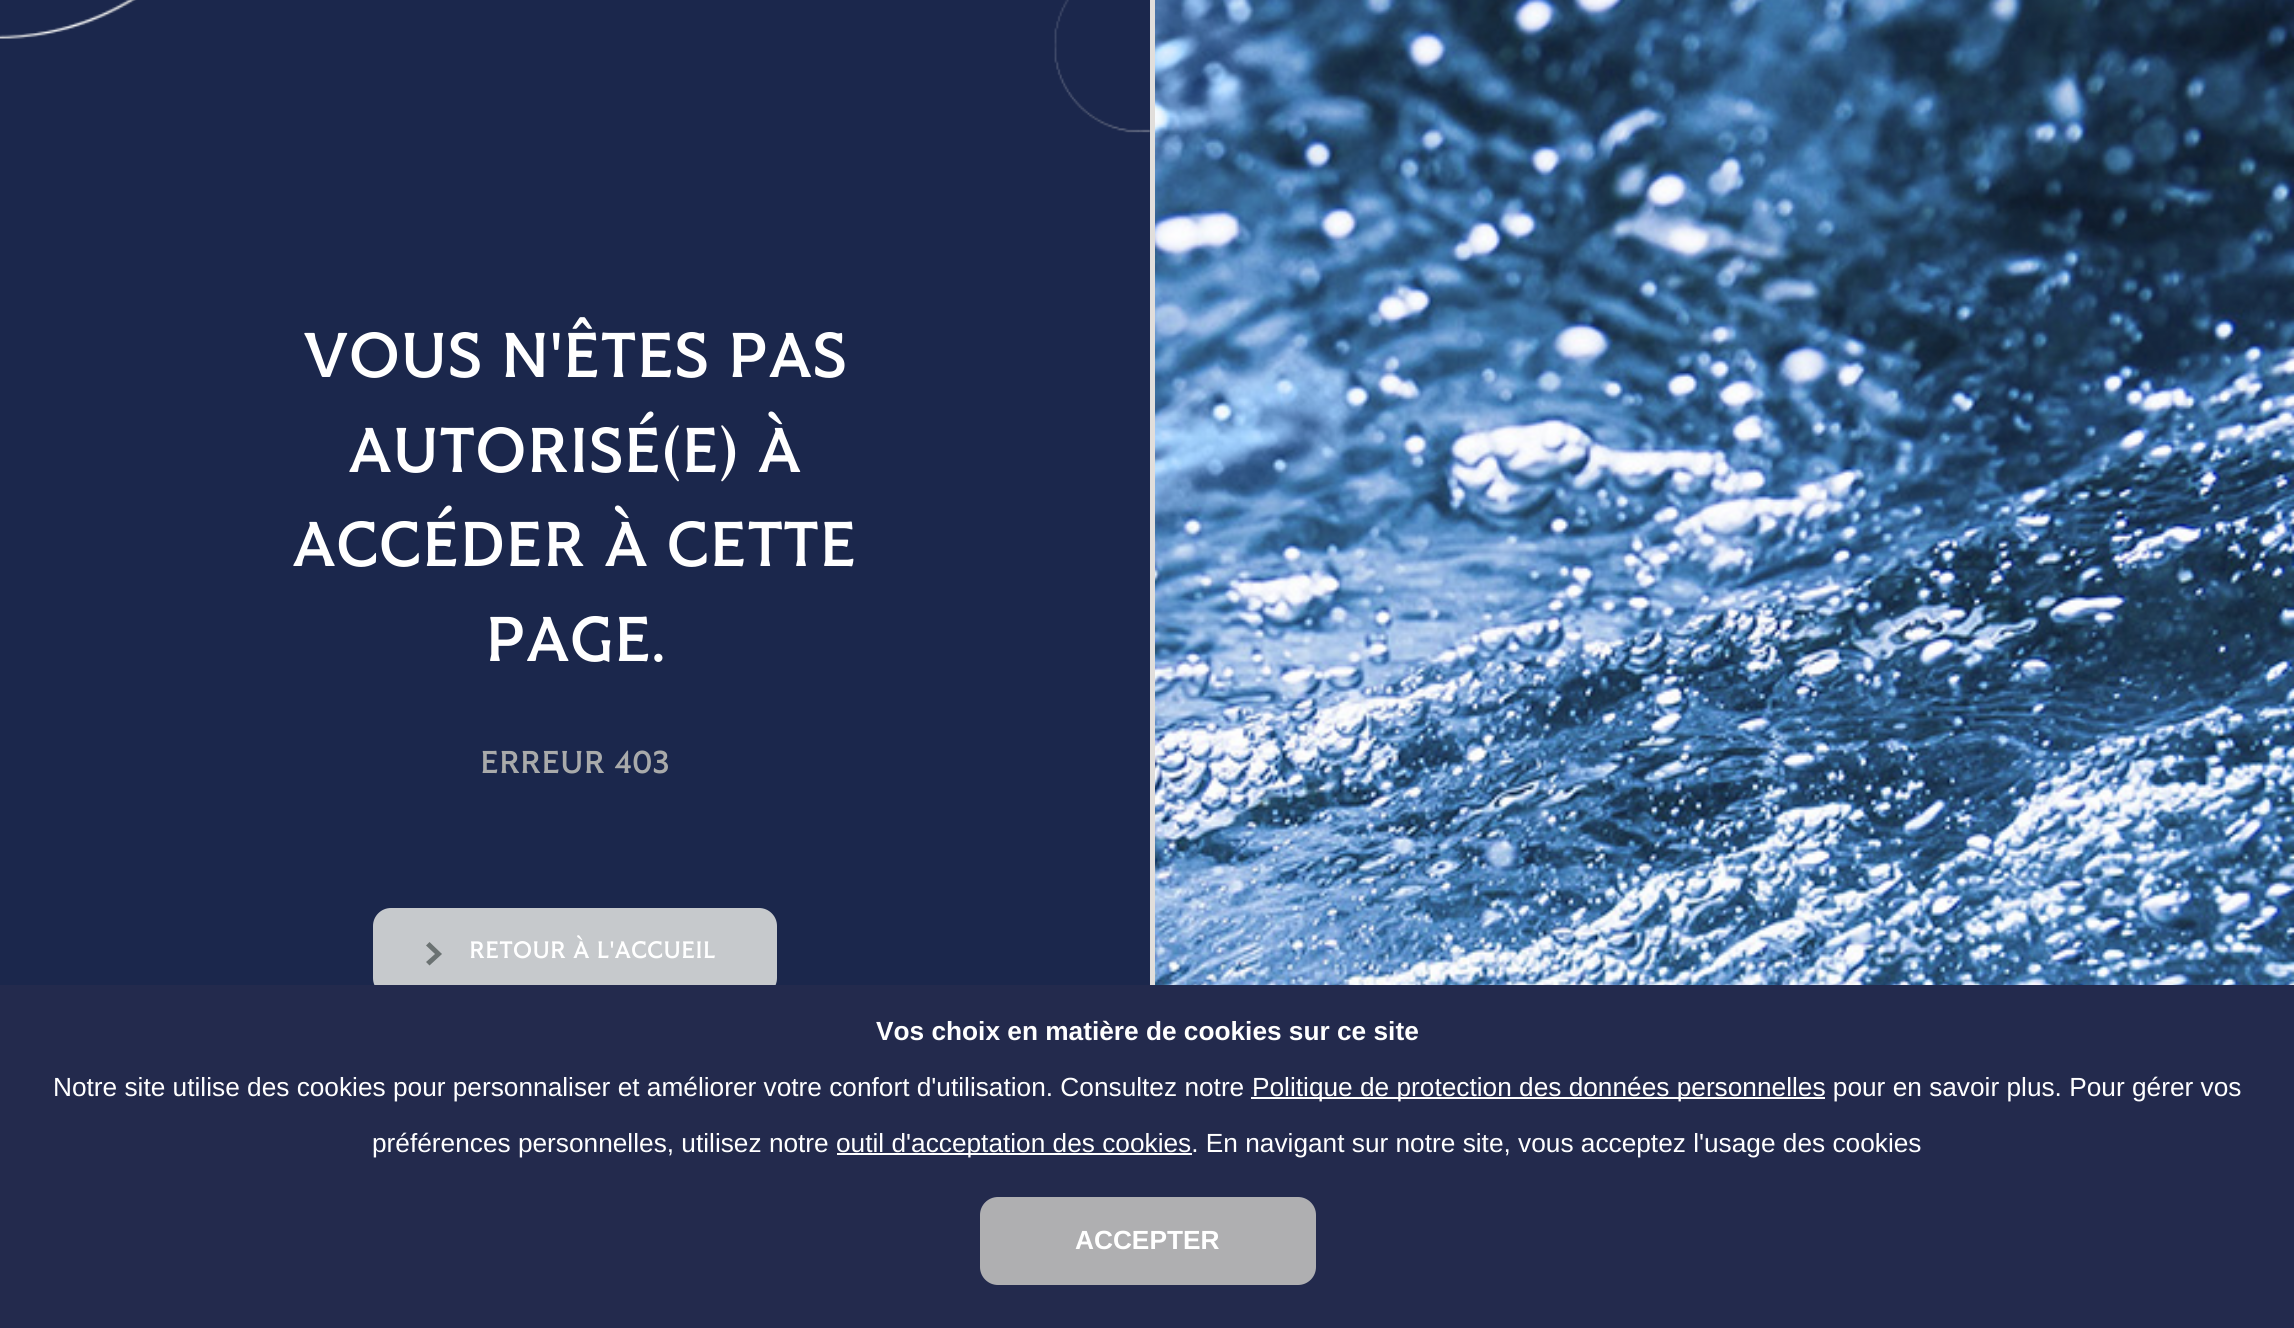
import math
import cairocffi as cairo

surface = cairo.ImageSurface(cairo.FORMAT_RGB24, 2294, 1328)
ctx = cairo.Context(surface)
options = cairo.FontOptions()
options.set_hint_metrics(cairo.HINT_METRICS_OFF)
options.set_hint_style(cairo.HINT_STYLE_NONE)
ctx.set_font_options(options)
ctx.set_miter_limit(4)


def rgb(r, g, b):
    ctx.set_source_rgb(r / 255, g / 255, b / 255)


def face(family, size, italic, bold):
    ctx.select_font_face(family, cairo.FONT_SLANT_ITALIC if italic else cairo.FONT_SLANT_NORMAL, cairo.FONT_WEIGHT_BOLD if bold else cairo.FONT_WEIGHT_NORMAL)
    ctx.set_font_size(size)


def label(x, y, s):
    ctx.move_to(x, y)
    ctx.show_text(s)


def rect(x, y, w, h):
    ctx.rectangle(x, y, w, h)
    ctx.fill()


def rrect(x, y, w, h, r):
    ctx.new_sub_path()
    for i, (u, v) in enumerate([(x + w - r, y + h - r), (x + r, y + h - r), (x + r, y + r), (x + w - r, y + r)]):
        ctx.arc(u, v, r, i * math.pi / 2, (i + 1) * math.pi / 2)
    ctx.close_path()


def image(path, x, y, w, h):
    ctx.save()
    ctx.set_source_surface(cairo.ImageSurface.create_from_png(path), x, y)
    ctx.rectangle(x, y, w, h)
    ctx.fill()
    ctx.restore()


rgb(255, 255, 255)
ctx.paint()
image('image0.png', 1155, 0, 1139, 985)
rgb(27, 39, 76)
rect(0, 0, 1150, 985)
image('image1.png', 0, 0, 1150, 133)
rgb(225, 222, 219)
rect(1150, 0, 5, 985)
face('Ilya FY', 63, 0, 0)
rgb(255, 255, 255)
label(303, 377, 'VOUS N\'ÊTES PAS')
label(348, 472, 'AUTORISÉ(E) À')
label(292, 566, 'ACCÉDER À CETTE')
label(485, 661, 'PAGE.')
face('Ilya FY', 31.5, 0, 0)
rgb(169, 170, 170)
label(480, 773, 'ERREUR 403')
rgb(198, 201, 204)
rrect(373, 908, 404, 88, 18)
ctx.fill()
rgb(107, 114, 114)
ctx.new_path()
ctx.move_to(429.5, 942)
ctx.line_to(426, 945.5)
ctx.line_to(435, 954)
ctx.line_to(426, 962)
ctx.line_to(429.5, 965.5)
ctx.line_to(442, 954)
ctx.close_path()
ctx.fill()
face('Ilya FY', 23.75, 0, 0)
rgb(255, 255, 255)
label(469, 958, 'RETOUR À L\'ACCUEIL')
rgb(35, 42, 77)
rect(0, 985, 2294, 343)
face('Liberation Sans', 26.25, 0, 1)
rgb(255, 255, 255)
label(876, 1040, 'Vos choix en matière de cookies sur ce site')
face('Liberation Sans', 26.25, 0, 0)
label(53, 1096, 'Notre site utilise des cookies pour personnaliser et améliorer votre confort d\'utilisation. Consultez notre')
rect(1251, 1097, 574, 2)
label(1252, 1096, 'Politique de protection des données personnelles pour en savoir plus. Pour gérer vos')
label(372, 1152, 'préférences personnelles, utilisez notre')
rect(837, 1153, 355, 2)
label(836, 1152, 'outil d\'acceptation des cookies. En navigant sur notre site, vous acceptez l\'usage des cookies')
rgb(175, 175, 177)
rrect(980, 1197, 336, 88, 18)
ctx.fill()
face('Liberation Sans', 26.25, 0, 1)
rgb(255, 255, 255)
label(1075, 1249, 'ACCEPTER')
surface.write_to_png('render.png')
